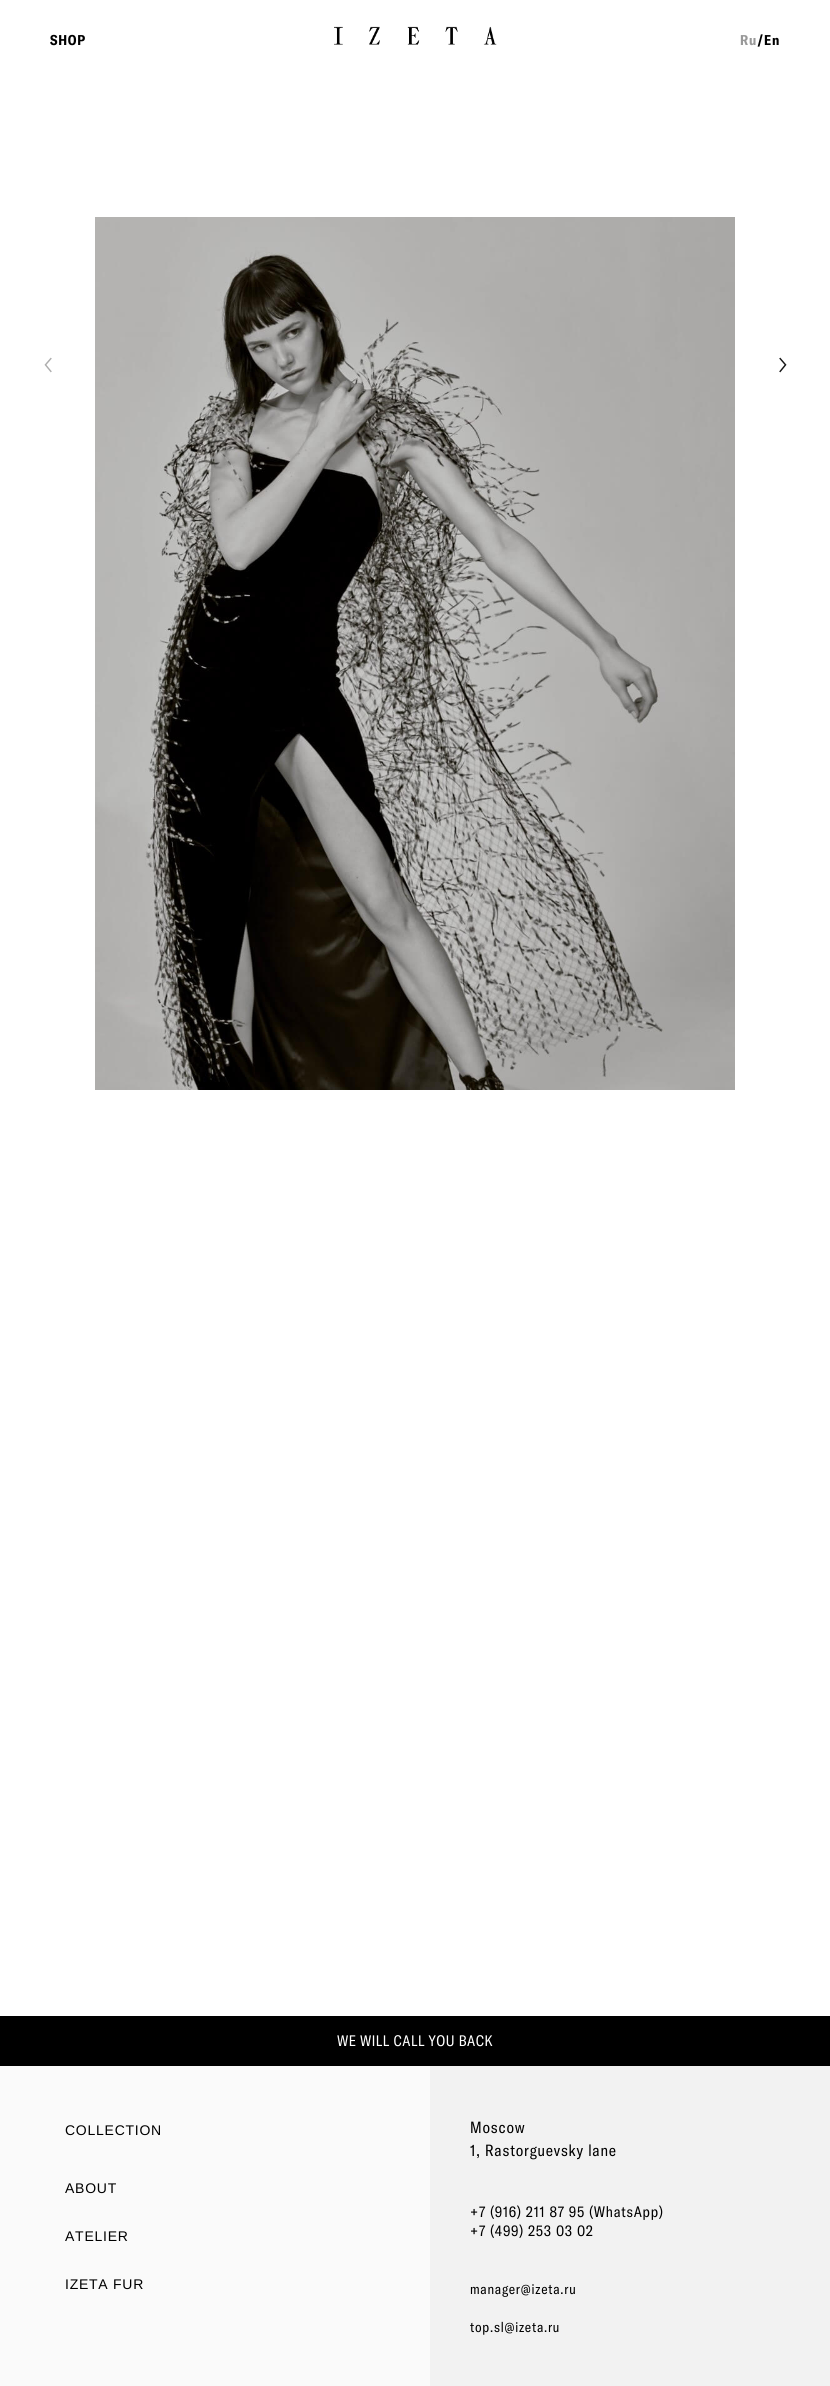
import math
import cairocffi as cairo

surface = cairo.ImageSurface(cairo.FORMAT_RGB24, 830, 2386)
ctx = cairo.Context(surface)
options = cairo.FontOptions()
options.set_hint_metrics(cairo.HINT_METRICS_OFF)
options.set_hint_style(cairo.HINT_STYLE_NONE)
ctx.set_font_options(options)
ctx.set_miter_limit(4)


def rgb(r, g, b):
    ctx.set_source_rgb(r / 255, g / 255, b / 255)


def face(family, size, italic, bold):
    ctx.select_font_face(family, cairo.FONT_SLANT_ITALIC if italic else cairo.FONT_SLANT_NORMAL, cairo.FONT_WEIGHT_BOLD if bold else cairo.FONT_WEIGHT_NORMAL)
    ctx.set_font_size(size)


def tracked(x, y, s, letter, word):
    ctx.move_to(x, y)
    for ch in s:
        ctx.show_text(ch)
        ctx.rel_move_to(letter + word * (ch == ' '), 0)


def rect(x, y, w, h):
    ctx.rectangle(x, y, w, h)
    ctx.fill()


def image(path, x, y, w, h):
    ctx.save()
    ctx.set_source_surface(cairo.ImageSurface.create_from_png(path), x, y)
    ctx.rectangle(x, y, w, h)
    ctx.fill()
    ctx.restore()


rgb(255, 255, 255)
ctx.paint()
face('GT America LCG', 14, 0, 1)
rgb(0, 0, 0)
tracked(50, 45, 'SHOP', 0.75, 0)
image('image0.png', 334, 26, 163, 19)
rgb(153, 153, 153)
tracked(740, 45, 'Ru', 0.75, 0)
rgb(0, 0, 0)
tracked(757, 45, '/En', 0.75, 0)
image('image1.png', 44, 357, 8, 16)
image('image2.png', 95, 217, 640, 873)
image('image3.png', 779, 357, 8, 16)
rect(0, 2016, 830, 50)
face('GT America LCG', 15, 0, 0)
rgb(255, 255, 255)
tracked(337, 2046, 'WE WILL CALL YOU BACK', 0.45, 0)
rgb(250, 250, 250)
rect(0, 2066, 430, 320)
face('Liberation Sans', 14, 0, 0)
rgb(0, 0, 0)
tracked(65, 2135, 'COLLECTION', 0.75, 0)
tracked(65, 2193, 'ABOUT', 0.75, 0)
tracked(65, 2241, 'ATELIER', 0.75, 0)
tracked(65, 2289, 'IZETA FUR', 0.75, 0)
rgb(242, 242, 242)
rect(430, 2066, 400, 320)
face('GT America LCG', 16, 0, 0)
rgb(0, 0, 0)
tracked(470, 2133, 'Moscow', 0.8, 0)
tracked(470, 2156, '1, Rastorguevsky lane', 0.8, 0)
face('GT America LCG', 15, 0, 0)
tracked(470, 2217, '+7 (916) 211 87 95 (WhatsApp)', 0.75, 0)
tracked(470, 2236, '+7 (499) 253 03 02', 0.75, 0)
face('GT America LCG', 14, 0, 0)
tracked(470, 2294, 'manager@izeta.ru', 0.75, 0)
tracked(470, 2332, 'top.sl@izeta.ru', 0.75, 0)
surface.write_to_png('render.png')
